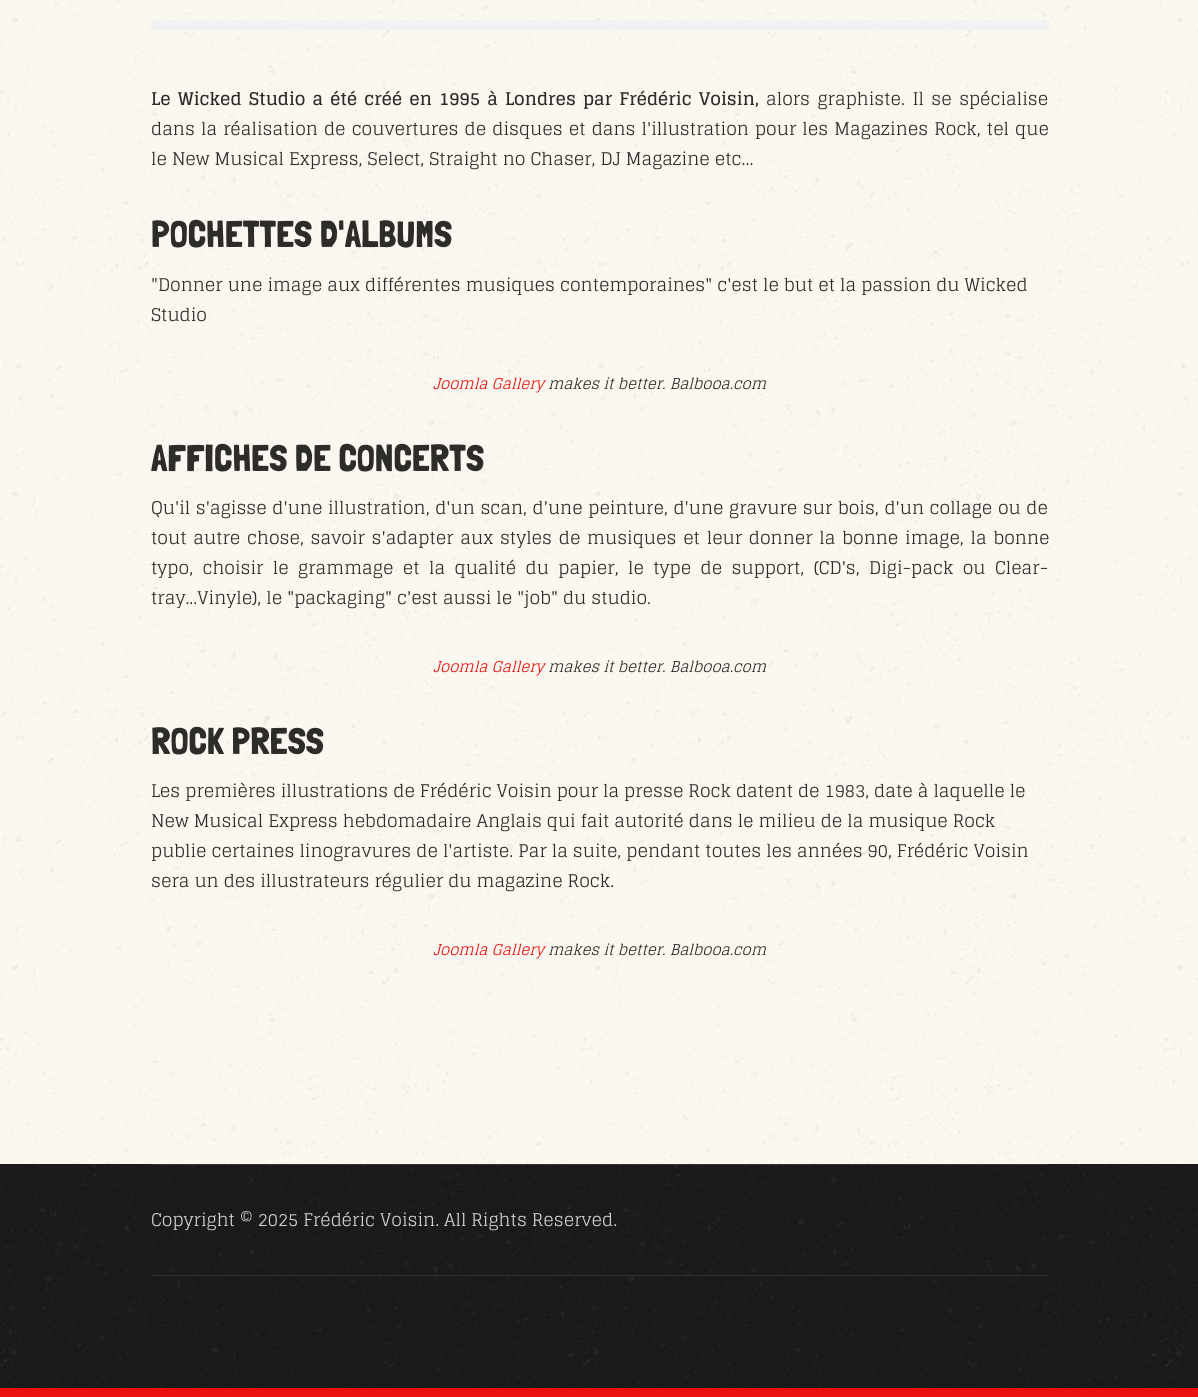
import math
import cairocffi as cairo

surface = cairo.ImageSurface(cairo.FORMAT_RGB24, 1198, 1397)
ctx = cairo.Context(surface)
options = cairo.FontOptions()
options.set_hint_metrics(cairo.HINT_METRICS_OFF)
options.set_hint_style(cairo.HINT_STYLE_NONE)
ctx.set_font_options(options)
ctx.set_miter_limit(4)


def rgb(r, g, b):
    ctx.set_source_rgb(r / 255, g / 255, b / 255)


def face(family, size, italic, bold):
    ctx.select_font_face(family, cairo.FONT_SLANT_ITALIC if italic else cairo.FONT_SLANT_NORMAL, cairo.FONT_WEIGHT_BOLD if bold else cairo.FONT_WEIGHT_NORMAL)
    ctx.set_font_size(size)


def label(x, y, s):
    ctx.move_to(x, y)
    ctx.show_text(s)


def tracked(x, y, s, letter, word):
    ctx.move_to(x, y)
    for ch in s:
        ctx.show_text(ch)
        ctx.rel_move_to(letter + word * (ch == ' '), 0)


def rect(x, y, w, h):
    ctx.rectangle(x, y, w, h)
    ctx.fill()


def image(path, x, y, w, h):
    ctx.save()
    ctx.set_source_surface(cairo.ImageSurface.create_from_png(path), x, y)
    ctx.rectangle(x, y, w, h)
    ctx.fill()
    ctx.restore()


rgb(250, 248, 240)
ctx.paint()
image('image0.png', 0, 0, 1198, 1164)
rgb(242, 242, 242)
rect(151, 20, 898, 10)
face('Glegoo', 17.5, 0, 1)
rgb(45, 44, 40)
tracked(151, 105, 'Le Wicked Studio a été créé en 1995 à Londres par Frédéric Voisin,', 0, 2.4)
face('Glegoo', 17.5, 0, 0)
tracked(766, 105, 'alors graphiste. Il se spécialise', 0, 2.4)
tracked(151, 135, 'dans la réalisation de couvertures de disques et dans l\'illustration pour les Magazines Rock, tel que', 0, 1.1)
label(151, 165, 'le New Musical Express, Select, Straight no Chaser, DJ Magazine etc...')
face('Londrina Solid', 37.5, 0, 0)
label(151, 247, 'POCHETTES D\'ALBUMS')
face('Glegoo', 17.5, 0, 0)
label(151, 291, '"Donner une image aux différentes musiques contemporaines" c\'est le but et la passion du Wicked')
label(151, 321, 'Studio')
face('Glegoo', 15, 1, 0)
rgb(236, 16, 14)
label(433, 389, 'Joomla Gallery')
rgb(45, 44, 40)
label(548, 389, 'makes it better. Balbooa.com')
face('Londrina Solid', 37.5, 0, 0)
label(151, 471, 'AFFICHES DE CONCERTS')
face('Glegoo', 17.5, 0, 0)
tracked(151, 514, 'Qu\'il s\'agisse d\'une illustration, d\'un scan, d\'une peinture, d\'une gravure sur bois, d\'un collage ou de', 0, 0.6)
tracked(151, 544, 'tout autre chose, savoir s\'adapter aux styles de musiques et leur donner la bonne image, la bonne', 0, 1.75)
tracked(151, 574, 'typo, choisir le grammage et la qualité du papier, le type de support, (CD\'s, Digi-pack ou Clear-', 0, 4.4)
label(151, 604, 'tray...Vinyle), le "packaging" c\'est aussi le "job" du studio.')
face('Glegoo', 15, 1, 0)
rgb(236, 16, 14)
label(433, 672, 'Joomla Gallery')
rgb(45, 44, 40)
label(548, 672, 'makes it better. Balbooa.com')
face('Londrina Solid', 37.5, 0, 0)
label(151, 754, 'ROCK PRESS')
face('Glegoo', 17.5, 0, 0)
label(151, 797, 'Les premières illustrations de Frédéric Voisin pour la presse Rock datent de 1983, date à laquelle le')
label(151, 827, 'New Musical Express hebdomadaire Anglais qui fait autorité dans le milieu de la musique Rock')
label(151, 857, 'publie certaines linogravures de l\'artiste. Par la suite, pendant toutes les années 90, Frédéric Voisin')
label(151, 887, 'sera un des illustrateurs régulier du magazine Rock.')
face('Glegoo', 15, 1, 0)
rgb(236, 16, 14)
label(433, 955, 'Joomla Gallery')
rgb(45, 44, 40)
label(548, 955, 'makes it better. Balbooa.com')
rgb(27, 26, 24)
rect(0, 1164, 1198, 224)
image('image1.png', 0, 1164, 1198, 224)
rgb(236, 16, 14)
rect(0, 1388, 1198, 9)
ctx.set_source_rgba(1, 1, 1, 0.1)
rect(151, 1164, 898, 1)
face('Glegoo', 17.5, 0, 0)
rgb(210, 209, 209)
label(151, 1226, 'Copyright © 2025 Frédéric Voisin. All Rights Reserved.')
ctx.set_source_rgba(1, 1, 1, 0.1)
rect(151, 1275, 898, 1)
surface.write_to_png('render.png')
